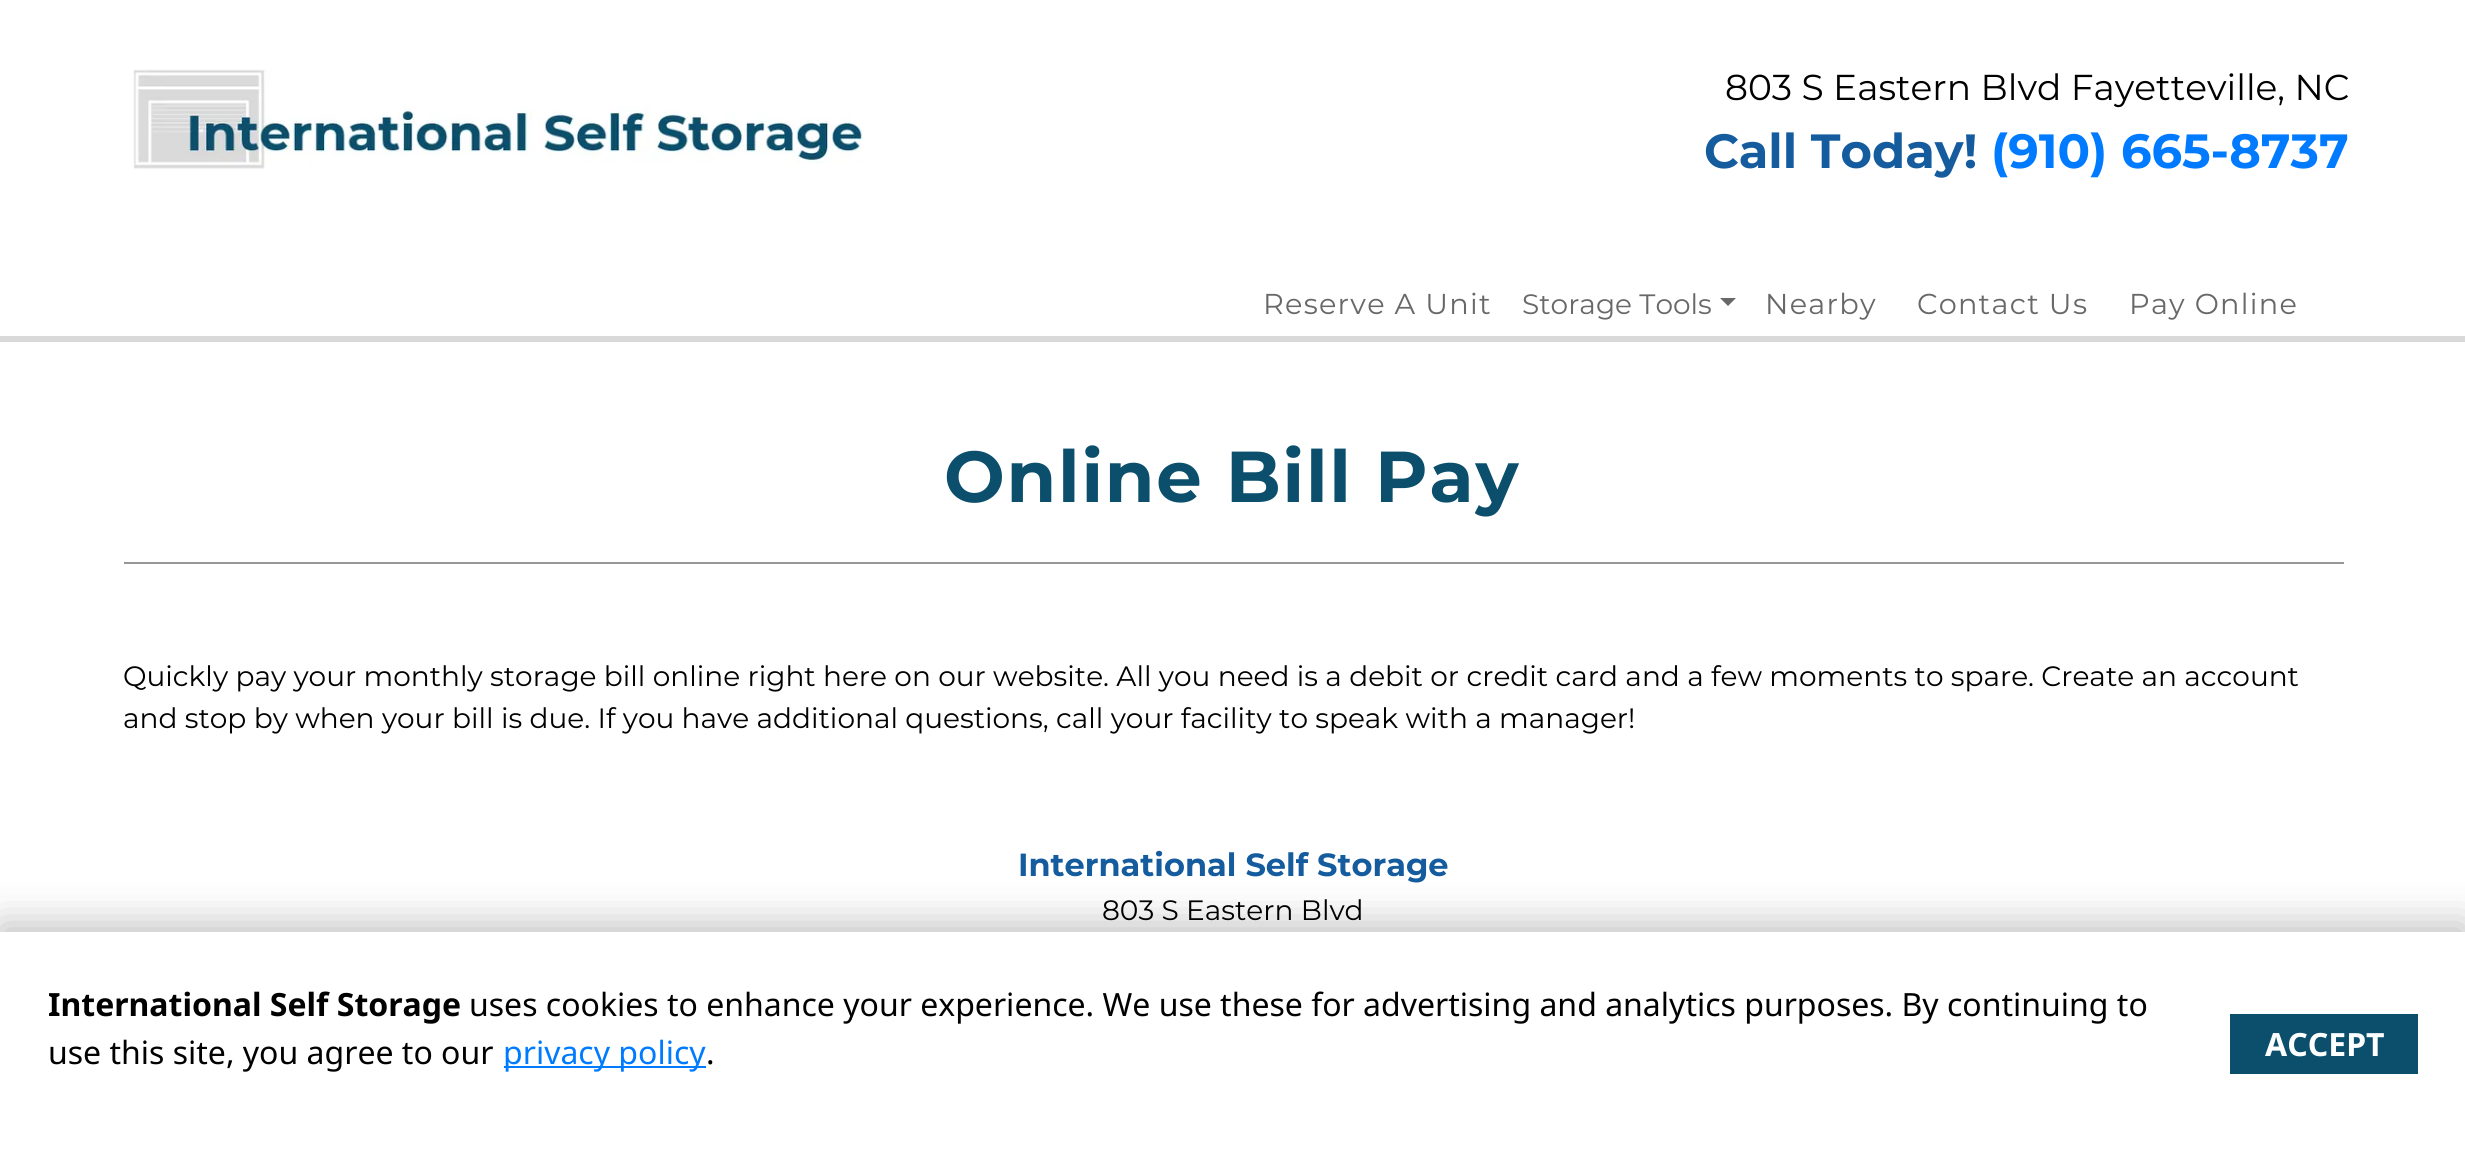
import math
import cairocffi as cairo

surface = cairo.ImageSurface(cairo.FORMAT_RGB24, 2465, 1156)
ctx = cairo.Context(surface)
options = cairo.FontOptions()
options.set_hint_metrics(cairo.HINT_METRICS_OFF)
options.set_hint_style(cairo.HINT_STYLE_NONE)
ctx.set_font_options(options)
ctx.set_miter_limit(4)


def rgb(r, g, b):
    ctx.set_source_rgb(r / 255, g / 255, b / 255)


def face(family, size, italic, bold):
    ctx.select_font_face(family, cairo.FONT_SLANT_ITALIC if italic else cairo.FONT_SLANT_NORMAL, cairo.FONT_WEIGHT_BOLD if bold else cairo.FONT_WEIGHT_NORMAL)
    ctx.set_font_size(size)


def label(x, y, s):
    ctx.move_to(x, y)
    ctx.show_text(s)


def tracked(x, y, s, letter, word):
    ctx.move_to(x, y)
    for ch in s:
        ctx.show_text(ch)
        ctx.rel_move_to(letter + word * (ch == ' '), 0)


def rect(x, y, w, h):
    ctx.rectangle(x, y, w, h)
    ctx.fill()


def rrect(x, y, w, h, r):
    ctx.new_sub_path()
    for i, (u, v) in enumerate([(x + w - r, y + h - r), (x + r, y + h - r), (x + r, y + r), (x + w - r, y + r)]):
        ctx.arc(u, v, r, i * math.pi / 2, (i + 1) * math.pi / 2)
    ctx.close_path()


def soft_shadow(x, y, w, h, r, blur, alpha):
    ctx.push_group_with_content(cairo.CONTENT_ALPHA)
    ctx.set_operator(cairo.OPERATOR_SOURCE)
    for i in range(15, -16, -2):
        e = blur * i / 6
        if min(w, h) + 2 * e > 0:
            ctx.set_source_rgba(0, 0, 0, alpha * math.erfc((i - 1) / 8.5) / 2)
            rrect(x - e, y - e, w + 2 * e, h + 2 * e, max(0, min(r + e + blur * .6, min(w, h) / 2 + e)))
            ctx.fill()
    ctx.mask(ctx.pop_group())


def image(path, x, y, w, h):
    ctx.save()
    ctx.set_source_surface(cairo.ImageSurface.create_from_png(path), x, y)
    ctx.rectangle(x, y, w, h)
    ctx.fill()
    ctx.restore()


rgb(255, 255, 255)
ctx.paint()
image('image0.png', 133, 69, 731, 100)
face('Montserrat', 36, 0, 0)
rgb(0, 0, 0)
label(1725, 100, '803 S Eastern Blvd Fayetteville, NC')
face('Montserrat', 48, 0, 1)
rgb(20, 92, 158)
label(1704, 168, 'Call Today!')
rgb(0, 123, 255)
label(1991, 168, '(910) 665-8737')
rgb(217, 217, 217)
rect(0, 336, 2465, 6)
face('Montserrat', 28.75, 0, 0)
rgb(104, 104, 104)
tracked(1263, 314, 'Reserve A Unit', 1.25, 0)
face('Montserrat', 28, 0, 0)
label(1522, 314, 'Storage Tools')
ctx.new_path()
ctx.move_to(1720, 298)
ctx.line_to(1736, 298)
ctx.line_to(1728, 306)
ctx.close_path()
ctx.fill()
face('Montserrat', 28.75, 0, 0)
tracked(1765, 314, 'Nearby', 1.25, 0)
tracked(1917, 314, 'Contact Us', 1.25, 0)
tracked(2129, 314, 'Pay Online', 1.25, 0)
face('Montserrat', 72, 0, 1)
rgb(11, 79, 108)
tracked(944, 502, 'Online Bill Pay', 1.75, 0)
rgb(151, 151, 151)
rect(124, 562, 2220, 2)
face('Montserrat', 28, 0, 0)
rgb(0, 0, 0)
label(123, 686, 'Quickly pay your monthly storage bill online right here on our website. All you need is a debit or credit card and a few moments to spare. Create an account')
label(123, 728, 'and stop by when your bill is due. If you have additional questions, call your facility to speak with a manager!')
face('Montserrat', 32, 0, 1)
rgb(20, 92, 158)
label(1018, 876, 'International Self Storage')
face('Montserrat', 28, 0, 0)
rgb(0, 0, 0)
label(1102, 920, '803 S Eastern Blvd')
rgb(0, 0, 0)
soft_shadow(0, 924, 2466, 224, 0, 20, 0.25)
rgb(255, 255, 255)
rect(0, 932, 2465, 224)
face('Noto Sans', 32, 0, 1)
rgb(0, 0, 0)
label(48, 1016, 'International Self Storage')
face('Noto Sans', 32, 0, 0)
label(469, 1016, 'uses cookies to enhance your experience. We use these for advertising and analytics purposes. By continuing to')
label(48, 1064, 'use this site, you agree to our')
rgb(0, 123, 255)
rect(504, 1066, 202, 2)
label(503, 1064, 'privacy policy')
rgb(0, 0, 0)
label(706, 1064, '.')
rgb(11, 79, 108)
rect(2230, 1014, 188, 60)
face('Noto Sans', 32, 0, 1)
rgb(255, 255, 255)
label(2265, 1056, 'ACCEPT')
surface.write_to_png('render.png')
